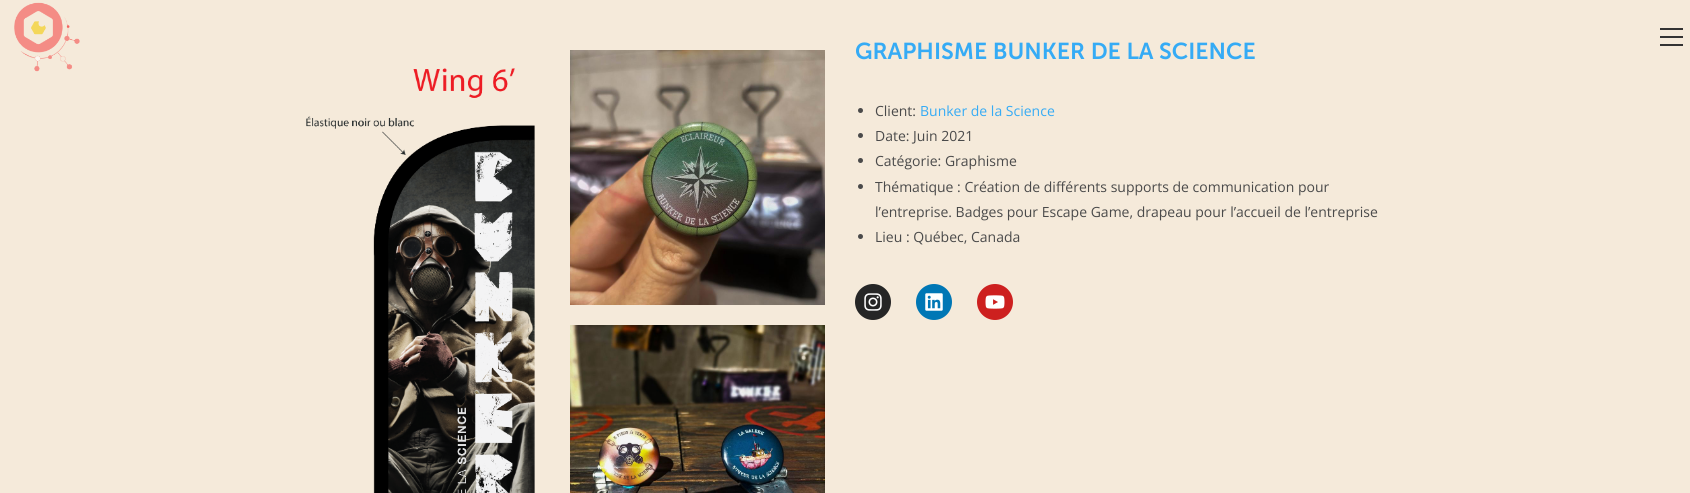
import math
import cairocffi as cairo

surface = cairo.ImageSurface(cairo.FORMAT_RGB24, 1690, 493)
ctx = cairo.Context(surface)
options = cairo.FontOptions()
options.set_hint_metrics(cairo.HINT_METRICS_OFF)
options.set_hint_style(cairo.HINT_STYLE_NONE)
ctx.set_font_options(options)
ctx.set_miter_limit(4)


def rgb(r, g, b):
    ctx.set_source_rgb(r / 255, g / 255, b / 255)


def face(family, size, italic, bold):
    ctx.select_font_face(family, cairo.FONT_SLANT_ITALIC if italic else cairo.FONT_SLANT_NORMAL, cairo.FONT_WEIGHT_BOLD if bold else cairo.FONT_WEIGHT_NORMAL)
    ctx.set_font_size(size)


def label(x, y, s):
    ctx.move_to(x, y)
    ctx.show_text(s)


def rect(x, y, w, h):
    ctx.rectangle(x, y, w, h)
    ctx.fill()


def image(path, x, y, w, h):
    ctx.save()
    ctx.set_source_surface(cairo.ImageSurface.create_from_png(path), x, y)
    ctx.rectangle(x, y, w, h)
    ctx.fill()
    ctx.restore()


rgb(245, 234, 218)
ctx.paint()
image('image0.png', 14, 2, 66, 70)
rgb(51, 51, 51)
rect(1660, 36, 23, 2)
rect(1660, 28, 23, 2)
rect(1660, 44, 23, 2)
image('image1.png', 306, 68, 229, 425)
image('image2.png', 570, 50, 255, 255)
image('image3.png', 570, 325, 255, 168)
face('Museo Sans SemiBold', 23, 0, 0)
rgb(53, 171, 245)
label(855, 59, 'GRAPHISME BUNKER DE LA SCIENCE')
rgb(74, 74, 74)
ctx.new_path()
ctx.arc(860.5, 110.5, 2.5, 0, 2 * math.pi)
ctx.fill()
face('Open Sans', 14, 0, 0)
label(875, 116, 'Client:')
rgb(53, 171, 245)
label(920, 116, 'Bunker de la Science')
rgb(74, 74, 74)
ctx.new_path()
ctx.arc(860.5, 135.5, 2.5, 0, 2 * math.pi)
ctx.fill()
label(875, 141, 'Date: Juin 2021')
ctx.new_path()
ctx.arc(860.5, 160.5, 2.5, 0, 2 * math.pi)
ctx.fill()
label(875, 166, 'Catégorie: Graphisme')
ctx.new_path()
ctx.arc(860.5, 186.5, 2.5, 0, 2 * math.pi)
ctx.fill()
label(875, 192, 'Thématique : Création de différents supports de communication pour')
label(875, 217, 'l’entreprise. Badges pour Escape Game, drapeau pour l’accueil de l’entreprise')
ctx.new_path()
ctx.arc(860.5, 236.5, 2.5, 0, 2 * math.pi)
ctx.fill()
label(875, 242, 'Lieu : Québec, Canada')
rgb(38, 38, 38)
ctx.new_path()
ctx.arc(873, 302, 18, 0, 2 * math.pi)
ctx.fill()
image('image4.png', 864, 293, 18, 18)
rgb(0, 119, 181)
ctx.arc(934, 302, 18, 0, 2 * math.pi)
ctx.fill()
image('image5.png', 925, 293, 18, 18)
rgb(205, 32, 31)
ctx.arc(995, 302, 18, 0, 2 * math.pi)
ctx.fill()
image('image6.png', 985, 295, 20, 14)
surface.write_to_png('render.png')
